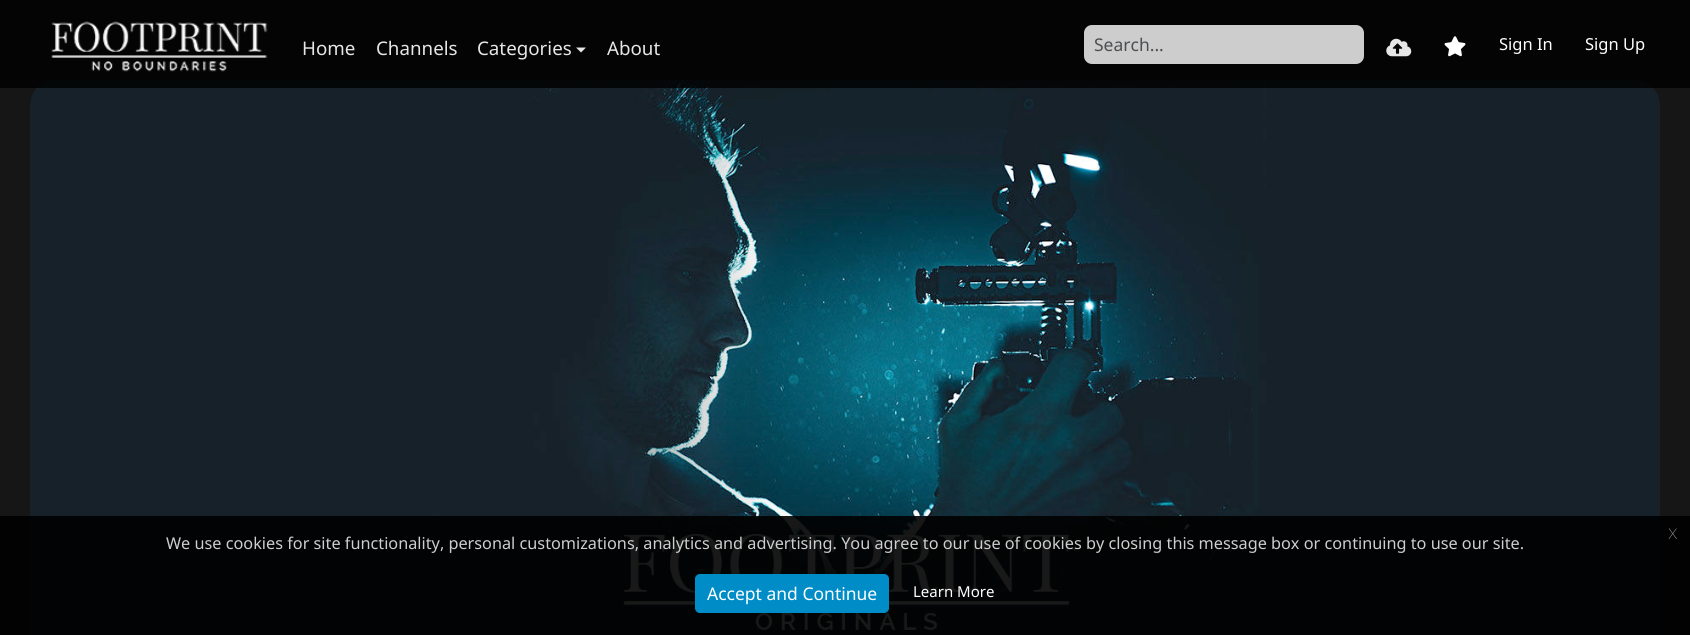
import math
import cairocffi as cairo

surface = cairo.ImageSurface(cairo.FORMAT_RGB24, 1690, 635)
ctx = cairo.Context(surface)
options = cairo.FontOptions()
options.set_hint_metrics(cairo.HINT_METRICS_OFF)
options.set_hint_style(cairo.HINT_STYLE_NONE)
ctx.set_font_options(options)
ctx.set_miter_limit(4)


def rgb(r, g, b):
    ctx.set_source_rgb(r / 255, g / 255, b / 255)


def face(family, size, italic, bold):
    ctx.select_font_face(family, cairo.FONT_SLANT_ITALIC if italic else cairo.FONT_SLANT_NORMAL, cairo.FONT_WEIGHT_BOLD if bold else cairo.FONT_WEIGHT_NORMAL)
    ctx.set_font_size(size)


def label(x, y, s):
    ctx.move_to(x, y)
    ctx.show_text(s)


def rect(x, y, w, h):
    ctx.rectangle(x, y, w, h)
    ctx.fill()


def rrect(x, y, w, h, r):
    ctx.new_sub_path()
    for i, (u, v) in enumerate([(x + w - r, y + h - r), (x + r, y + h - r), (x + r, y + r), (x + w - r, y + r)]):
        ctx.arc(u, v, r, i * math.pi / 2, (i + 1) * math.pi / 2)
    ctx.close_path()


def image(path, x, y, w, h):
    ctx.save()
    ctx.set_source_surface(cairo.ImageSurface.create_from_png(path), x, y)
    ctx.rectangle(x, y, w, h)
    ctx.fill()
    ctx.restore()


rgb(22, 22, 22)
ctx.paint()
image('image3.png', 30, 80, 1630, 555)
ctx.set_source_rgba(0, 0, 0, 0.8)
rect(0, 0, 1690, 88)
image('image0.png', 51, 21, 217, 51)
face('Noto Sans', 18.75, 0, 0)
rgb(230, 230, 230)
label(302, 55, 'Home')
label(376, 55, 'Channels')
label(477, 55, 'Categories')
ctx.new_path()
ctx.move_to(576, 47.5)
ctx.line_to(586, 47.5)
ctx.line_to(581, 52.5)
ctx.close_path()
ctx.fill()
label(607, 55, 'About')
rgb(205, 205, 205)
rrect(1084, 25, 280, 39, 8)
ctx.fill()
face('Noto Sans', 17.5, 0, 0)
rgb(76, 79, 82)
label(1094, 51, 'Search...')
image('image1.png', 1386, 38, 26, 19)
image('image2.png', 1444, 36, 22, 21)
face('Noto Sans', 16.5, 0, 0)
rgb(255, 255, 255)
label(1499, 50, 'Sign In')
label(1585, 50, 'Sign Up')
ctx.set_source_rgba(0, 0, 0, 0.9)
rect(0, 516, 1690, 119)
face('Noto Sans Thin', 20, 0, 0)
rgb(162, 162, 162)
label(1668, 539, 'x')
face('Noto Sans', 16.25, 0, 0)
rgb(206, 206, 206)
label(166, 549, 'We use cookies for site functionality, personal customizations, analytics and advertising. You agree to our use of cookies by closing this message box or continuing to use our site.')
rgb(0, 141, 199)
rrect(695.5, 574.5, 193, 38, 4.5)
ctx.fill_preserve()
ctx.set_line_width(1)
ctx.stroke()
face('Noto Sans', 17.5, 0, 0)
rgb(255, 255, 255)
label(707, 600, 'Accept and Continue')
face('Noto Sans', 15, 0, 0)
label(913, 597, 'Learn More')
surface.write_to_png('render.png')
